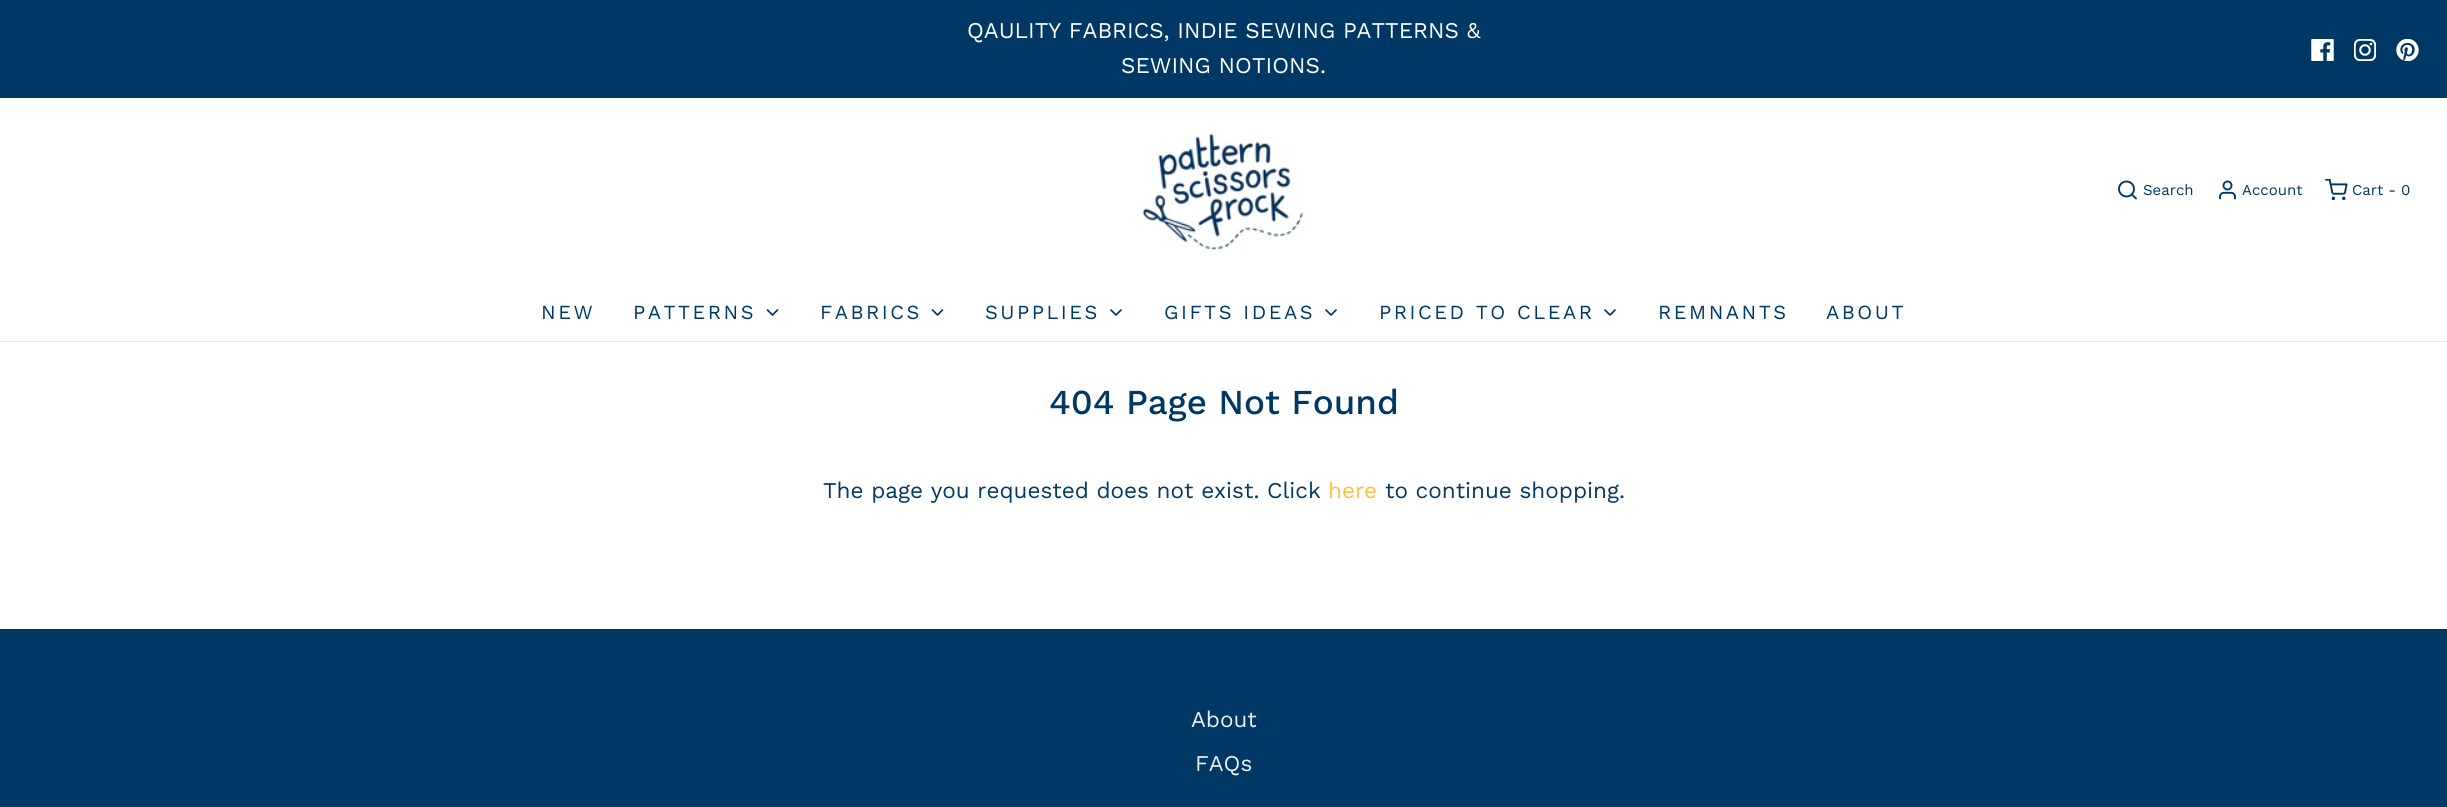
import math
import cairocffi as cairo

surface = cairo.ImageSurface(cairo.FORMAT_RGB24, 2447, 807)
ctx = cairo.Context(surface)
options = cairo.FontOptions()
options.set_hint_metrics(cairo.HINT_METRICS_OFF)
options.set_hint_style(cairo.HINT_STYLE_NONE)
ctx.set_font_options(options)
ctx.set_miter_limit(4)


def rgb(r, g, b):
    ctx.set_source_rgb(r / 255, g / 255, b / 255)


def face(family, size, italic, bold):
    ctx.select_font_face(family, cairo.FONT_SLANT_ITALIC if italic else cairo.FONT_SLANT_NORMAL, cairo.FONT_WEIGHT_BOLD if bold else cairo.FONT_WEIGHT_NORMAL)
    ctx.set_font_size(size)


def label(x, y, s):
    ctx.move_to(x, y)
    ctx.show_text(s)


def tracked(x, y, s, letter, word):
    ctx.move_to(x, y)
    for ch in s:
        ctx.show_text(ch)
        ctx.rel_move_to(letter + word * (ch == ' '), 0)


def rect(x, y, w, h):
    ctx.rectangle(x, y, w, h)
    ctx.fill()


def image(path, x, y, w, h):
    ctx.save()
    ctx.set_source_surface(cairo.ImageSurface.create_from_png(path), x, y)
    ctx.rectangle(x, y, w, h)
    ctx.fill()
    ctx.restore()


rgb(255, 255, 255)
ctx.paint()
rgb(0, 56, 101)
rect(0, 0, 2447, 98)
face('Work Sans', 22.5, 0, 0)
rgb(255, 255, 255)
label(967, 38, 'QAULITY FABRICS, INDIE SEWING PATTERNS &')
label(1121, 73, 'SEWING NOTIONS.')
image('image0.png', 2311, 39, 23, 22)
image('image1.png', 2354, 39, 22, 22)
image('image2.png', 2396, 39, 23, 22)
rgb(230, 235, 240)
rect(0, 341, 2447, 1)
image('image3.png', 1141, 133, 164, 120)
ctx.arc(2126.5, 189, 7.5, 0, 2 * math.pi)
rgb(0, 56, 101)
ctx.set_line_width(1.9)
ctx.stroke()
ctx.new_path()
ctx.move_to(2136, 198.5)
ctx.line_to(2132, 194.5)
ctx.set_line_cap(cairo.LINE_CAP_ROUND)
ctx.set_line_join(cairo.LINE_JOIN_ROUND)
ctx.stroke()
face('Work Sans', 15, 0, 0)
label(2143, 195, 'Search')
image('image4.png', 2219, 180, 17, 20)
label(2242, 195, 'Account')
image('image5.png', 2325, 179, 23, 22)
label(2352, 195, 'Cart - 0')
face('Work Sans', 20, 0, 0)
tracked(541, 319, 'NEW', 2.5, 0)
tracked(633, 319, 'PATTERNS', 2.5, 0)
ctx.new_path()
ctx.move_to(767.5, 310)
ctx.line_to(772.5, 315)
ctx.line_to(777.5, 310)
ctx.set_line_width(1.7)
ctx.stroke()
tracked(820, 319, 'FABRICS', 2.5, 0)
ctx.new_path()
ctx.move_to(932.5, 310)
ctx.line_to(937.5, 315)
ctx.line_to(942.5, 310)
ctx.stroke()
tracked(985, 319, 'SUPPLIES', 2.5, 0)
ctx.new_path()
ctx.move_to(1111, 310)
ctx.line_to(1116, 315)
ctx.line_to(1121, 310)
ctx.stroke()
tracked(1164, 319, 'GIFTS IDEAS', 2.5, 0)
ctx.new_path()
ctx.move_to(1326, 310)
ctx.line_to(1331, 315)
ctx.line_to(1336, 310)
ctx.stroke()
tracked(1379, 319, 'PRICED TO CLEAR', 2.5, 0)
ctx.new_path()
ctx.move_to(1605, 310)
ctx.line_to(1610, 315)
ctx.line_to(1615, 310)
ctx.stroke()
tracked(1658, 319, 'REMNANTS', 2.5, 0)
tracked(1826, 319, 'ABOUT', 2.5, 0)
face('Work Sans Medium', 35, 0, 0)
label(1049, 414, '404 Page Not Found')
face('Work Sans', 22.5, 0, 0)
label(823, 498, 'The page you requested does not exist. Click')
rgb(255, 191, 63)
label(1328, 498, 'here')
rgb(0, 56, 101)
label(1385, 498, 'to continue shopping.')
rect(0, 629, 2447, 178)
rgb(236, 239, 241)
label(1191, 727, 'About')
label(1195, 771, 'FAQs')
surface.write_to_png('render.png')
